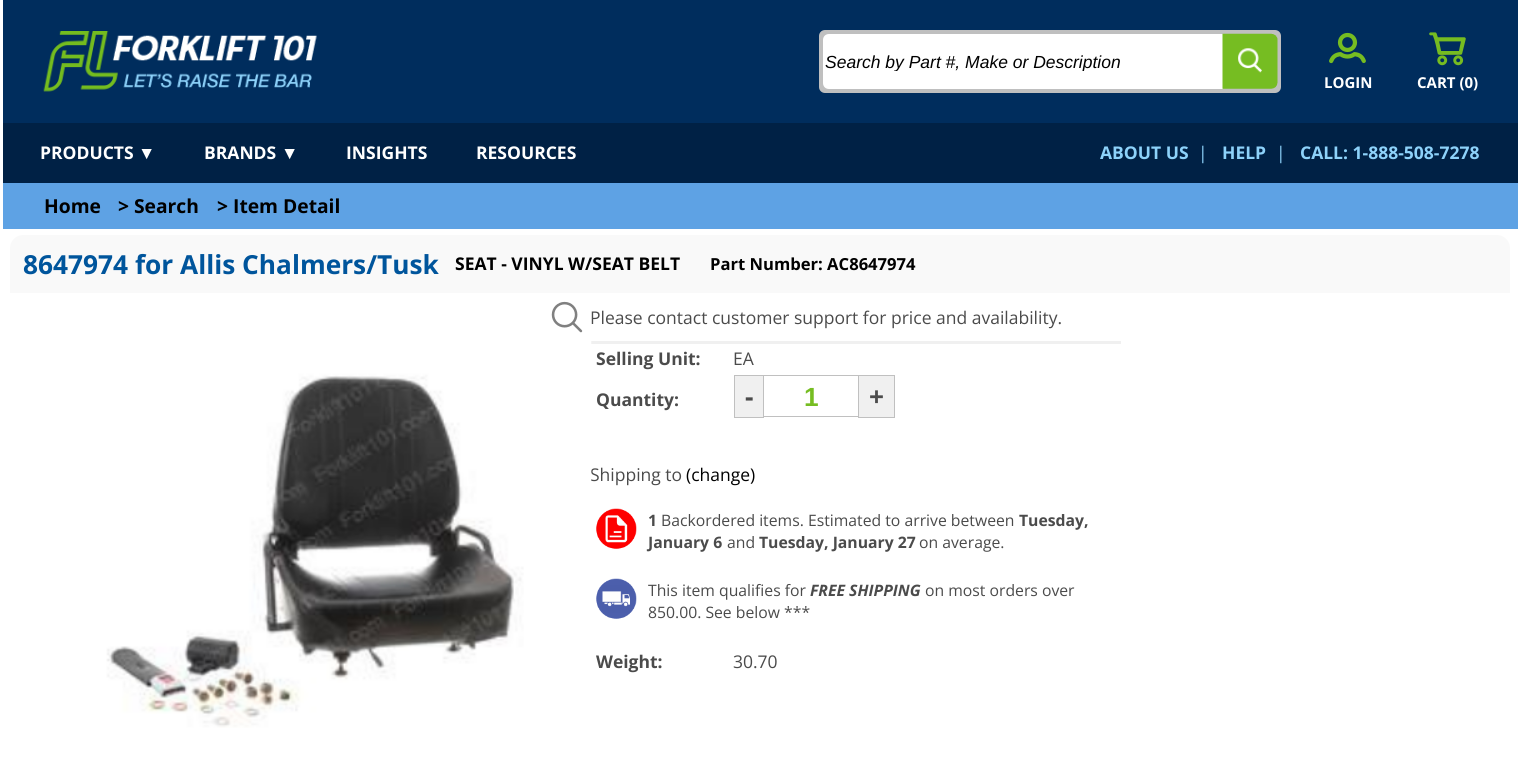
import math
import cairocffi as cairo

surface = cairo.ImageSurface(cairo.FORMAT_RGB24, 1520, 758)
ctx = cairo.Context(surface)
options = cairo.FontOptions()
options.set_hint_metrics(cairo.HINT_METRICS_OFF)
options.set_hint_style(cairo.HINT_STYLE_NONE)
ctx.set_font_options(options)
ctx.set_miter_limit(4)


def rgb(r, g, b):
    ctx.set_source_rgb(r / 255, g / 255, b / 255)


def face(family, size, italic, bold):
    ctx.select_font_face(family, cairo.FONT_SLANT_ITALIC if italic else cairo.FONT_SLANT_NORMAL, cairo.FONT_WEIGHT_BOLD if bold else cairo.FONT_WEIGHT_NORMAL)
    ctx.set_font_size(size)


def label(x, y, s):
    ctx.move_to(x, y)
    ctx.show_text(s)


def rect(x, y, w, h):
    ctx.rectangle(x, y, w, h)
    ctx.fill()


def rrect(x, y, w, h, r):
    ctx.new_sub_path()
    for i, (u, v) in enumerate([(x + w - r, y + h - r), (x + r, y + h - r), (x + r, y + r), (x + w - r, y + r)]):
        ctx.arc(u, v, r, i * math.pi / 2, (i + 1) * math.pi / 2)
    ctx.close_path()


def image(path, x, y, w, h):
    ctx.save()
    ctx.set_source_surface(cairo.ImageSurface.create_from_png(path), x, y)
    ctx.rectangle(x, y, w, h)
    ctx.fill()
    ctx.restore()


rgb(255, 255, 255)
ctx.paint()
rgb(0, 45, 93)
rect(3, 0, 1515, 123)
image('image0.png', 43, 31, 274, 61)
rgb(191, 191, 191)
rrect(819, 30, 462, 63, 6)
ctx.fill()
rgb(255, 255, 255)
ctx.new_path()
ctx.move_to(829, 34)
ctx.line_to(1223, 34)
ctx.line_to(1223, 89)
ctx.line_to(829, 89)
ctx.curve_to(825.5, 89, 823, 86.5, 823, 83)
ctx.line_to(823, 40)
ctx.curve_to(823, 36.5, 825.5, 34, 829, 34)
ctx.close_path()
ctx.fill()
ctx.save()
ctx.rectangle(825, 51, 395, 20)
ctx.clip()
face('Liberation Sans', 17.5, 1, 0)
rgb(0, 0, 0)
label(825, 68, 'Search by Part #, Make or Description')
ctx.restore()
image('image1.png', 1222, 33, 56, 56)
image('image2.png', 1329, 32, 37, 32)
face('Open Sans', 15, 0, 1)
label(1324, 88, 'LOGIN')
image('image3.png', 1429, 32, 37, 34)
label(1417, 88, 'CART (0)')
rgb(0, 33, 69)
rect(3, 123, 1515, 60)
face('Open Sans', 17.5, 0, 1)
rgb(255, 255, 255)
label(40, 159, 'PRODUCTS')
face('Liberation Sans', 17.5, 0, 1)
label(138, 159, '▼')
face('Open Sans', 17.5, 0, 1)
label(204, 159, 'BRANDS')
face('Liberation Sans', 17.5, 0, 1)
label(281, 159, '▼')
face('Open Sans', 17.5, 0, 1)
label(346, 159, 'INSIGHTS')
label(476, 159, 'RESOURCES')
rgb(141, 210, 250)
label(1100, 159, 'ABOUT US')
face('Open Sans', 17.5, 0, 0)
label(1198, 159, '|')
face('Open Sans', 17.5, 0, 1)
label(1222, 159, 'HELP')
face('Open Sans', 17.5, 0, 0)
label(1276, 159, '|')
face('Open Sans', 17.5, 0, 1)
label(1300, 159, 'CALL: 1-888-508-7278')
rgb(94, 162, 228)
rect(3, 183, 1515, 46)
face('Open Sans', 19.25, 0, 1)
rgb(0, 0, 0)
label(44, 213, 'Home')
label(118, 213, '> Search')
label(217, 213, '> Item Detail')
rgb(249, 249, 249)
ctx.new_path()
ctx.move_to(23, 235)
ctx.line_to(1497, 235)
ctx.curve_to(1504, 235, 1510, 241, 1510, 248)
ctx.line_to(1510, 293)
ctx.line_to(10, 293)
ctx.line_to(10, 248)
ctx.curve_to(10, 241, 16, 235, 23, 235)
ctx.close_path()
ctx.fill()
face('Open Sans', 26.25, 0, 1)
rgb(0, 85, 156)
label(23, 274, '8647974 for Allis Chalmers/Tusk')
face('Open Sans', 17.5, 0, 1)
rgb(0, 0, 0)
label(455, 270, 'SEAT - VINYL W/SEAT BELT')
face('Open Sans', 16.6, 0, 1)
label(710, 270, 'Part Number: AC8647974')
rgb(240, 240, 240)
rect(590, 341, 531, 3)
face('Open Sans', 17.5, 0, 0)
rgb(75, 75, 75)
label(590, 324, 'Please contact customer support for price and availability.')
label(590, 481, 'Shipping to')
image('image5.png', 106, 311, 486, 417)
image('image4.png', 551, 301, 32, 32)
face('Open Sans', 17.5, 0, 1)
label(596, 365, 'Selling Unit:')
face('Open Sans', 17.5, 0, 0)
label(733, 365, 'EA')
face('Open Sans', 17.5, 0, 1)
label(596, 406, 'Quantity:')
rgb(240, 240, 240)
ctx.rectangle(734.5, 375.5, 29, 42)
ctx.fill_preserve()
rgb(192, 192, 192)
ctx.set_line_width(1)
ctx.stroke()
face('Open Sans', 26.25, 0, 1)
rgb(75, 75, 75)
label(745, 406, '-')
rgb(192, 192, 192)
rect(764, 375, 94, 1)
rect(764, 416, 94, 1)
face('Liberation Sans', 26.25, 0, 1)
rgb(118, 189, 34)
label(804, 406, '1')
rgb(240, 240, 240)
ctx.rectangle(858.5, 375.5, 36, 42)
ctx.fill_preserve()
rgb(192, 192, 192)
ctx.stroke()
face('Open Sans', 26.25, 0, 1)
rgb(75, 75, 75)
label(869, 406, '+')
face('Open Sans', 17.5, 0, 0)
rgb(0, 0, 0)
label(686, 481, '(change)')
image('image6.png', 596, 508, 41, 41)
face('Open Sans', 15.75, 0, 1)
rgb(75, 75, 75)
label(648, 526, '1')
face('Open Sans', 15.75, 0, 0)
label(661, 526, 'Backordered items. Estimated to arrive between')
face('Open Sans', 15.75, 0, 1)
label(1019, 526, 'Tuesday,')
label(648, 548, 'January 6')
face('Open Sans', 15.75, 0, 0)
label(727, 548, 'and')
face('Open Sans', 15.75, 0, 1)
label(759, 548, 'Tuesday, January 27')
face('Open Sans', 15.75, 0, 0)
label(919, 548, 'on average.')
image('image7.png', 596, 578, 41, 41)
label(648, 596, 'This item qualifies for')
face('Open Sans', 15.75, 1, 1)
label(810, 596, 'FREE SHIPPING')
face('Open Sans', 15.75, 0, 0)
label(925, 596, 'on most orders over')
label(648, 618, '850.00. See below ***')
face('Open Sans', 17.5, 0, 1)
label(596, 668, 'Weight:')
face('Open Sans', 17.5, 0, 0)
label(733, 668, '30.70')
surface.write_to_png('render.png')
